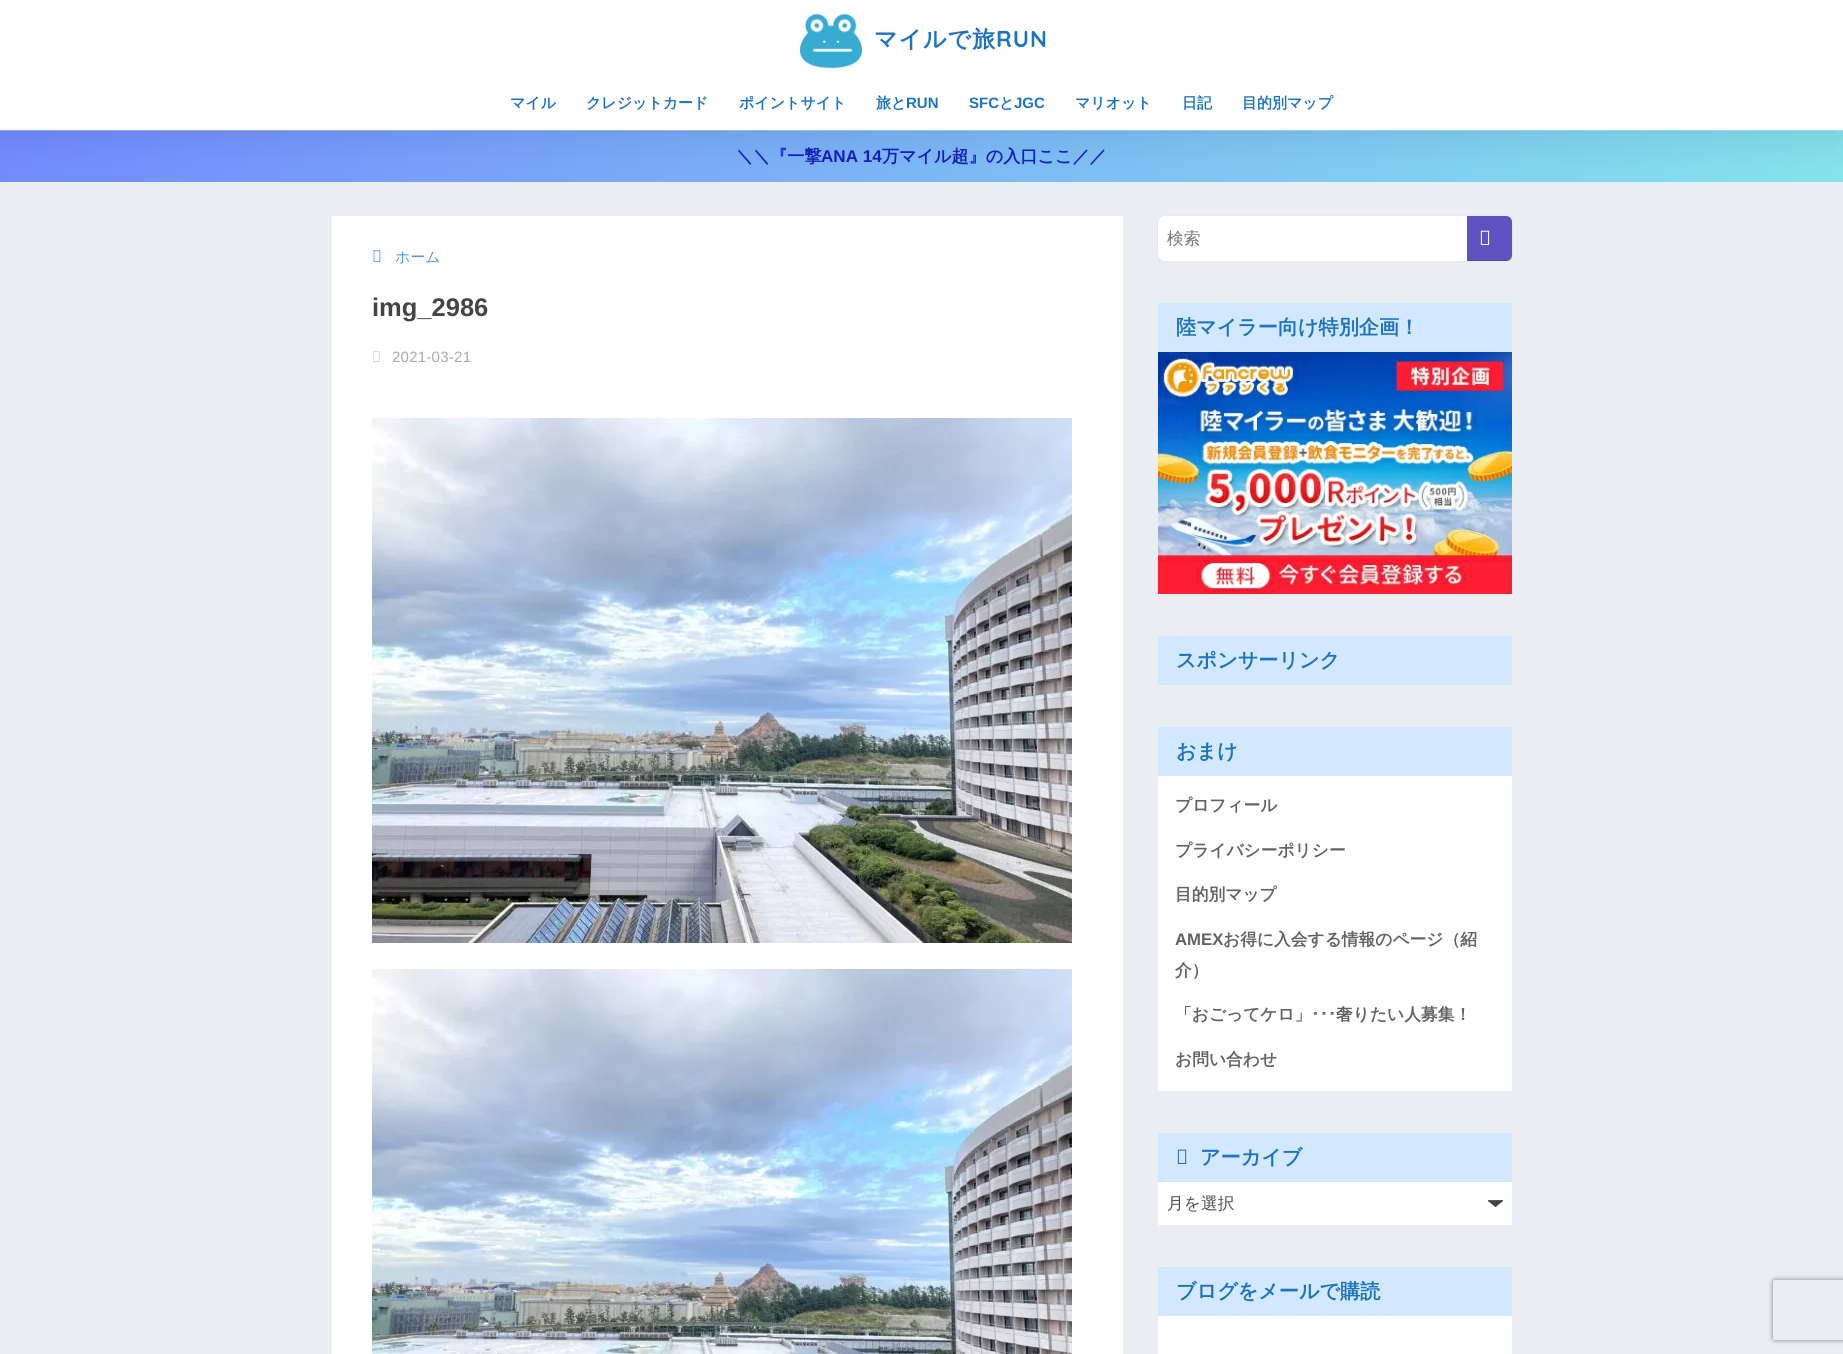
import math
import cairocffi as cairo

surface = cairo.ImageSurface(cairo.FORMAT_RGB24, 1843, 1354)
ctx = cairo.Context(surface)
options = cairo.FontOptions()
options.set_hint_metrics(cairo.HINT_METRICS_OFF)
options.set_hint_style(cairo.HINT_STYLE_NONE)
ctx.set_font_options(options)
ctx.set_miter_limit(4)


def rgb(r, g, b):
    ctx.set_source_rgb(r / 255, g / 255, b / 255)


def face(family, size, italic, bold):
    ctx.select_font_face(family, cairo.FONT_SLANT_ITALIC if italic else cairo.FONT_SLANT_NORMAL, cairo.FONT_WEIGHT_BOLD if bold else cairo.FONT_WEIGHT_NORMAL)
    ctx.set_font_size(size)


def label(x, y, s):
    ctx.move_to(x, y)
    ctx.show_text(s)


def tracked(x, y, s, letter, word):
    ctx.move_to(x, y)
    for ch in s:
        ctx.show_text(ch)
        ctx.rel_move_to(letter + word * (ch == ' '), 0)


def rect(x, y, w, h):
    ctx.rectangle(x, y, w, h)
    ctx.fill()


def rrect(x, y, w, h, r):
    ctx.new_sub_path()
    for i, (u, v) in enumerate([(x + w - r, y + h - r), (x + r, y + h - r), (x + r, y + r), (x + w - r, y + r)]):
        ctx.arc(u, v, r, i * math.pi / 2, (i + 1) * math.pi / 2)
    ctx.close_path()


def soft_shadow(x, y, w, h, r, blur, alpha):
    ctx.push_group_with_content(cairo.CONTENT_ALPHA)
    ctx.set_operator(cairo.OPERATOR_SOURCE)
    for i in range(15, -16, -2):
        e = blur * i / 6
        if min(w, h) + 2 * e > 0:
            ctx.set_source_rgba(0, 0, 0, alpha * math.erfc((i - 1) / 8.5) / 2)
            rrect(x - e, y - e, w + 2 * e, h + 2 * e, max(0, min(r + e + blur * .6, min(w, h) / 2 + e)))
            ctx.fill()
    ctx.mask(ctx.pop_group())


def image(path, x, y, w, h):
    ctx.save()
    ctx.set_source_surface(cairo.ImageSurface.create_from_png(path), x, y)
    ctx.rectangle(x, y, w, h)
    ctx.fill()
    ctx.restore()


rgb(234, 237, 242)
ctx.paint()
gradient = cairo.LinearGradient(4.8, 25, 1838, 186)
gradient.add_color_stop_rgba(0, 0.616, 0.682, 1, 1)
gradient.add_color_stop_rgba(1, 0.667, 0.922, 0.949, 1)
ctx.set_source(gradient)
rect(0, 130, 1843, 1)
gradient = cairo.LinearGradient(4.8, 76, 1838, 237)
gradient.add_color_stop_rgba(0, 0.451, 0.545, 1, 1)
gradient.add_color_stop_rgba(1, 0.522, 0.89, 0.925, 1)
ctx.set_source(gradient)
rect(0, 131, 1843, 51)
rgb(0, 12, 66)
soft_shadow(0, 0, 1843, 130, 0, 22.5, 0.15)
rgb(255, 255, 255)
rect(0, 0, 1843, 130)
image('image0.png', 800, 13, 62, 56)
face('WenQuanYi Zen Hei', 23, 0, 1)
rgb(30, 115, 190)
tracked(874, 47, 'マイルで旅', 1, 0)
face('Quicksand', 23, 0, 1)
tracked(996, 47, 'RUN', 1, 0)
face('WenQuanYi Zen Hei', 15, 0, 1)
label(510, 108, 'マイル')
label(586, 108, 'クレジットカード')
label(739, 108, 'ポイントサイト')
label(876, 108, '旅と')
face('Liberation Sans', 15, 0, 1)
label(906, 108, 'RUN')
label(969, 108, 'SFC')
face('WenQuanYi Zen Hei', 15, 0, 1)
label(999, 108, 'と')
face('Liberation Sans', 15, 0, 1)
label(1014, 108, 'JGC')
face('WenQuanYi Zen Hei', 15, 0, 1)
label(1075, 108, 'マリオット')
label(1182, 108, '日記')
label(1242, 108, '目的別マップ')
face('WenQuanYi Zen Hei', 17.1, 0, 1)
rgb(20, 31, 188)
label(736, 162, '＼＼『一撃')
face('Liberation Sans', 17.1, 0, 1)
label(821, 162, 'ANA 14')
face('WenQuanYi Zen Hei', 17.1, 0, 1)
label(882, 162, '万マイル超』の入口ここ／／')
rgb(255, 255, 255)
rect(332, 216, 791, 1138)
image('image1.png', 373, 250, 8, 12)
face('WenQuanYi Zen Hei Medium', 15, 0, 0)
rgb(79, 150, 246)
label(395, 262, 'ホーム')
face('Liberation Sans', 25.5, 0, 1)
rgb(68, 68, 68)
label(372, 316, 'img_2986')
image('image2.png', 373, 351, 7, 11)
face('Liberation Sans', 15, 0, 0)
rgb(165, 170, 175)
tracked(392, 362, '2021-03-21', 0.25, 0)
image('image3.png', 372, 418, 700, 525)
image('image4.png', 372, 969, 700, 385)
rgb(0, 30, 100)
soft_shadow(1158, 216, 354, 45, 6, 0.5, 0.1)
ctx.save()
ctx.rectangle(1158, 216, 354, 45)
ctx.clip()
rgb(0, 12, 66)
soft_shadow(1161, 225, 348, 39, 3, 6.5, 0.1)
ctx.restore()
rgb(255, 255, 255)
rrect(1158, 216, 354, 45, 6)
ctx.fill()
face('WenQuanYi Zen Hei Medium', 16.75, 0, 0)
rgb(117, 117, 117)
label(1167, 244, '検索')
rgb(94, 83, 193)
ctx.new_path()
ctx.move_to(1467, 216)
ctx.line_to(1506, 216)
ctx.curve_to(1509.5, 216, 1512, 218.5, 1512, 222)
ctx.line_to(1512, 255)
ctx.curve_to(1512, 258.5, 1509.5, 261, 1506, 261)
ctx.line_to(1467, 261)
ctx.close_path()
ctx.fill()
ctx.set_source_rgba(0, 0, 0, 0.1)
rect(1467, 260, 42, 1)
image('image5.png', 1480, 230, 10, 15)
rgb(209, 232, 255)
rect(1158, 303, 354, 49)
face('WenQuanYi Zen Hei', 20.1, 0, 1)
rgb(30, 115, 190)
label(1176, 334, '陸マイラー向け特別企画！')
image('image6.png', 1158, 352, 354, 242)
rgb(209, 232, 255)
rect(1158, 636, 354, 49)
rgb(30, 115, 190)
label(1176, 667, 'スポンサーリンク')
rgb(255, 255, 255)
rect(1158, 776, 354, 315)
rgb(209, 232, 255)
rect(1158, 727, 354, 49)
rgb(30, 115, 190)
label(1176, 758, 'おまけ')
face('WenQuanYi Zen Hei', 16.75, 0, 1)
rgb(98, 98, 98)
label(1175, 811, 'プロフィール')
label(1175, 856, 'プライバシーポリシー')
label(1175, 900, '目的別マップ')
face('Liberation Sans', 16.75, 0, 1)
label(1175, 945, 'AMEX')
face('WenQuanYi Zen Hei', 16.75, 0, 1)
label(1223, 945, 'お得に入会する情報のページ（紹')
label(1175, 976, '介）')
label(1175, 1020, '「おごってケロ」')
face('IPAPGothic', 16.75, 0, 1)
label(1311, 1020, '･･･')
face('WenQuanYi Zen Hei', 16.75, 0, 1)
label(1336, 1020, '奢りたい人募集！')
label(1175, 1065, 'お問い合わせ')
rgb(255, 255, 255)
rect(1158, 1182, 354, 43)
rgb(209, 232, 255)
rect(1158, 1133, 354, 49)
image('image7.png', 1177, 1149, 10, 15)
face('WenQuanYi Zen Hei', 20.1, 0, 1)
rgb(30, 115, 190)
label(1200, 1164, 'アーカイブ')
image('image8.png', 1488, 1200, 15, 7)
face('WenQuanYi Zen Hei Medium', 16.75, 0, 0)
rgb(77, 77, 77)
label(1167, 1209, '月を選択')
rgb(255, 255, 255)
rect(1158, 1316, 354, 38)
rgb(209, 232, 255)
rect(1158, 1267, 354, 49)
face('WenQuanYi Zen Hei', 20.1, 0, 1)
rgb(30, 115, 190)
label(1176, 1298, 'ブログをメールで購読')
ctx.save()
ctx.set_fill_rule(cairo.FILL_RULE_EVEN_ODD)
ctx.new_path()
ctx.move_to(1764, 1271)
ctx.line_to(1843, 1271)
ctx.line_to(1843, 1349)
ctx.line_to(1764, 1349)
ctx.close_path()
ctx.move_to(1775, 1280)
ctx.line_to(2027, 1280)
ctx.curve_to(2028, 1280, 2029, 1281, 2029, 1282)
ctx.line_to(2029, 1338)
ctx.curve_to(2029, 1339, 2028, 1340, 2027, 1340)
ctx.line_to(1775, 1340)
ctx.curve_to(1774, 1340, 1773, 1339, 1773, 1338)
ctx.line_to(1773, 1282)
ctx.curve_to(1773, 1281, 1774, 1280, 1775, 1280)
ctx.close_path()
ctx.clip()
rgb(128, 128, 128)
soft_shadow(1773, 1280, 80, 60, 2, 2.5, 1)
ctx.restore()
surface.write_to_png('render.png')
